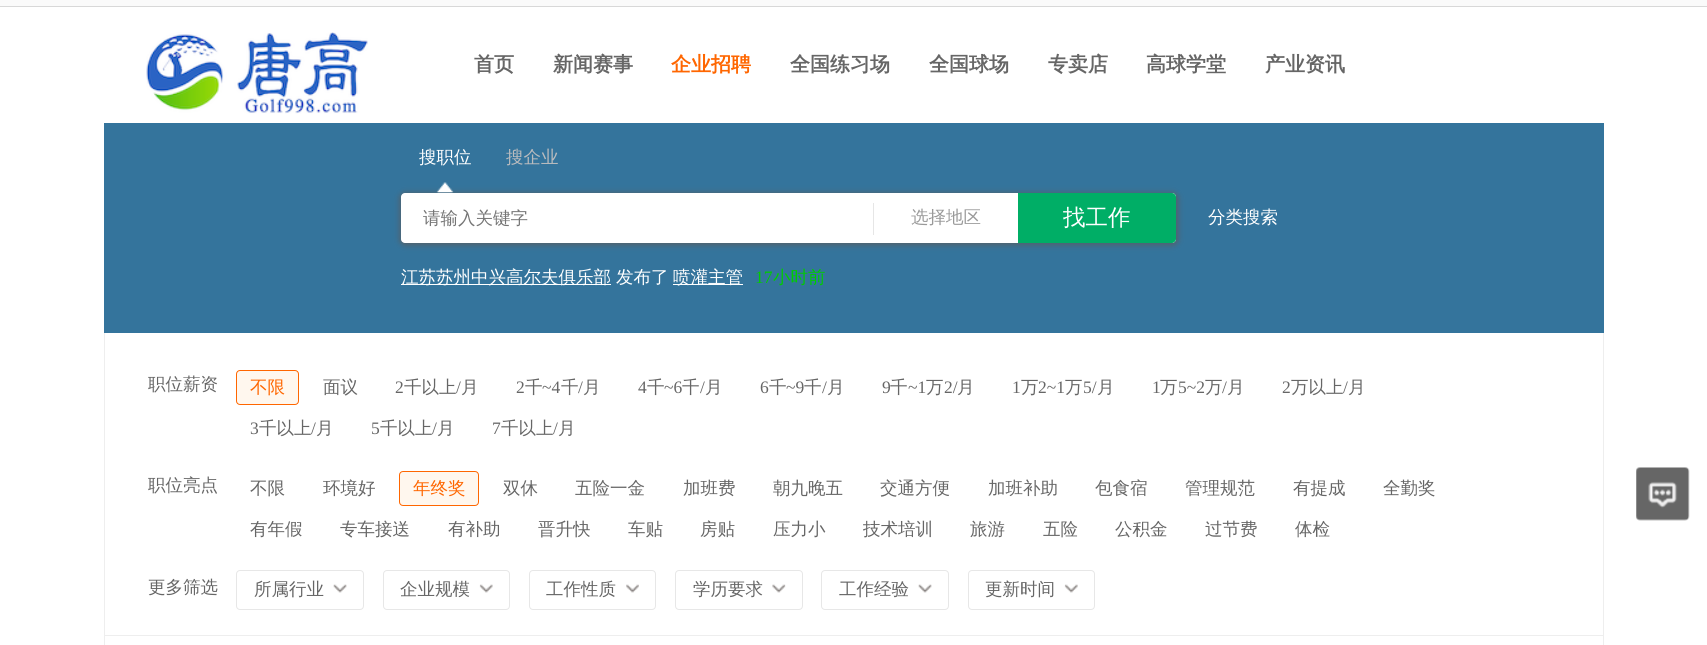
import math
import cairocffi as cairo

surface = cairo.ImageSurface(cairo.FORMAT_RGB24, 1707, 645)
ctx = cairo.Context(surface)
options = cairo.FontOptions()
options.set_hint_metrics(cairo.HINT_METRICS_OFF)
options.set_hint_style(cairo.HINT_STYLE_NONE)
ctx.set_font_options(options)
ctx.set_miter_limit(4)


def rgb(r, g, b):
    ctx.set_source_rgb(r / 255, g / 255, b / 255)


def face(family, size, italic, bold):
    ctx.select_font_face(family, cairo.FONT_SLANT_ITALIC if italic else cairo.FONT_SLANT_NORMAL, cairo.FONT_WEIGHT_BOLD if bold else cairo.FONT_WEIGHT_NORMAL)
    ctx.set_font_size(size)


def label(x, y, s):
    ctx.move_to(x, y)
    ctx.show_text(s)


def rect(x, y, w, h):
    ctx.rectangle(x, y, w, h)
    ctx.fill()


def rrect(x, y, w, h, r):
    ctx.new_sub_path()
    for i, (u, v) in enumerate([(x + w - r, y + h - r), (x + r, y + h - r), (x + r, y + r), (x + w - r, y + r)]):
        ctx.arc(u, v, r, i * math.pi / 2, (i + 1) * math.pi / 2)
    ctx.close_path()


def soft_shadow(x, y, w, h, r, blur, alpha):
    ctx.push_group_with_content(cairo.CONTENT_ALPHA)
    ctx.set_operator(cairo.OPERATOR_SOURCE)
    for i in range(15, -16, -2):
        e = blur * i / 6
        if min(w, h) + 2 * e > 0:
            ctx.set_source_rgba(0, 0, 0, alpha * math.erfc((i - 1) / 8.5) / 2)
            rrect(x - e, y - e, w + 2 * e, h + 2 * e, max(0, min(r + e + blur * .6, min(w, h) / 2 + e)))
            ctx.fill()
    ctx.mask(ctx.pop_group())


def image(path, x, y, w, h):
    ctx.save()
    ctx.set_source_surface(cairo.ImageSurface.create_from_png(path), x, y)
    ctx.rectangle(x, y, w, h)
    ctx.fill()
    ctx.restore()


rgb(255, 255, 255)
ctx.paint()
rgb(250, 250, 250)
rect(0, 0, 1707, 6)
rgb(216, 216, 216)
rect(0, 6, 1707, 1)
image('image0.png', 146, 32, 222, 82)
face('WenQuanYi Zen Hei', 20, 0, 1)
rgb(102, 102, 102)
label(474, 71, '首页')
label(553, 71, '新闻赛事')
rgb(255, 102, 0)
label(671, 71, '企业招聘')
rgb(102, 102, 102)
label(790, 71, '全国练习场')
label(929, 71, '全国球场')
label(1048, 71, '专卖店')
label(1146, 71, '高球学堂')
label(1265, 71, '产业资讯')
rgb(52, 116, 156)
rect(104, 123, 1500, 210)
face('WenQuanYi Zen Hei Medium', 17.5, 0, 0)
rgb(255, 255, 255)
label(419, 163, '搜职位')
rgb(93, 91, 91)
soft_shadow(400, 193, 778, 52, 5, 3, 0.83)
image('image1.png', 436, 182, 18, 11)
rgb(187, 188, 190)
label(506, 163, '搜企业')
rgb(255, 255, 255)
rrect(401, 193, 775, 50, 4)
ctx.fill()
rgb(117, 117, 117)
label(423, 224, '请输入关键字')
rgb(230, 230, 230)
rect(873, 203, 1, 32)
rgb(153, 153, 153)
label(911, 223, '选择地区')
rgb(0, 174, 102)
ctx.new_path()
ctx.move_to(1018, 193)
ctx.line_to(1172, 193)
ctx.curve_to(1174, 193, 1176, 195, 1176, 197)
ctx.line_to(1176, 239)
ctx.curve_to(1176, 241, 1174, 243, 1172, 243)
ctx.line_to(1018, 243)
ctx.close_path()
ctx.fill()
face('WenQuanYi Zen Hei Medium', 22.5, 0, 0)
rgb(255, 255, 255)
label(1063, 225, '找工作')
face('WenQuanYi Zen Hei Medium', 17.5, 0, 0)
label(1208, 223, '分类搜索')
rect(401, 284, 210, 1)
label(401, 283, '江苏苏州中兴高尔夫俱乐部')
label(616, 283, '发布了')
rect(673, 284, 70, 1)
label(673, 283, '喷灌主管')
face('Liberation Serif', 17.5, 0, 0)
rgb(0, 204, 0)
label(755, 283, '17')
face('WenQuanYi Zen Hei Medium', 17.5, 0, 0)
label(773, 283, '小时前')
rgb(238, 238, 238)
rect(1603, 333, 1, 312)
rect(104, 333, 1, 312)
rgb(102, 102, 102)
label(148, 390, '职位薪资')
rgb(255, 247, 238)
rrect(236.5, 370.5, 62, 34, 3.5)
ctx.fill_preserve()
rgb(255, 102, 0)
ctx.set_line_width(1)
ctx.stroke()
label(250, 393, '不限')
rgb(102, 102, 102)
label(323, 393, '面议')
face('Liberation Serif', 17.5, 0, 0)
label(395, 393, '2')
face('WenQuanYi Zen Hei Medium', 17.5, 0, 0)
label(404, 393, '千以上')
face('Liberation Serif', 17.5, 0, 0)
label(456, 393, '/')
face('WenQuanYi Zen Hei Medium', 17.5, 0, 0)
label(461, 393, '月')
face('Liberation Serif', 17.5, 0, 0)
label(516, 393, '2')
face('WenQuanYi Zen Hei Medium', 17.5, 0, 0)
label(525, 393, '千')
face('Liberation Serif', 17.5, 0, 0)
label(542, 393, '~4')
face('WenQuanYi Zen Hei Medium', 17.5, 0, 0)
label(561, 393, '千')
face('Liberation Serif', 17.5, 0, 0)
label(578, 393, '/')
face('WenQuanYi Zen Hei Medium', 17.5, 0, 0)
label(583, 393, '月')
face('Liberation Serif', 17.5, 0, 0)
label(638, 393, '4')
face('WenQuanYi Zen Hei Medium', 17.5, 0, 0)
label(647, 393, '千')
face('Liberation Serif', 17.5, 0, 0)
label(664, 393, '~6')
face('WenQuanYi Zen Hei Medium', 17.5, 0, 0)
label(682, 393, '千')
face('Liberation Serif', 17.5, 0, 0)
label(700, 393, '/')
face('WenQuanYi Zen Hei Medium', 17.5, 0, 0)
label(705, 393, '月')
face('Liberation Serif', 17.5, 0, 0)
label(760, 393, '6')
face('WenQuanYi Zen Hei Medium', 17.5, 0, 0)
label(769, 393, '千')
face('Liberation Serif', 17.5, 0, 0)
label(786, 393, '~9')
face('WenQuanYi Zen Hei Medium', 17.5, 0, 0)
label(804, 393, '千')
face('Liberation Serif', 17.5, 0, 0)
label(822, 393, '/')
face('WenQuanYi Zen Hei Medium', 17.5, 0, 0)
label(827, 393, '月')
face('Liberation Serif', 17.5, 0, 0)
label(882, 393, '9')
face('WenQuanYi Zen Hei Medium', 17.5, 0, 0)
label(890, 393, '千')
face('Liberation Serif', 17.5, 0, 0)
label(908, 393, '~1')
face('WenQuanYi Zen Hei Medium', 17.5, 0, 0)
label(926, 393, '万')
face('Liberation Serif', 17.5, 0, 0)
label(944, 393, '2/')
face('WenQuanYi Zen Hei Medium', 17.5, 0, 0)
label(957, 393, '月')
face('Liberation Serif', 17.5, 0, 0)
label(1012, 393, '1')
face('WenQuanYi Zen Hei Medium', 17.5, 0, 0)
label(1021, 393, '万')
face('Liberation Serif', 17.5, 0, 0)
label(1038, 393, '2~1')
face('WenQuanYi Zen Hei Medium', 17.5, 0, 0)
label(1065, 393, '万')
face('Liberation Serif', 17.5, 0, 0)
label(1083, 393, '5/')
face('WenQuanYi Zen Hei Medium', 17.5, 0, 0)
label(1097, 393, '月')
face('Liberation Serif', 17.5, 0, 0)
label(1152, 393, '1')
face('WenQuanYi Zen Hei Medium', 17.5, 0, 0)
label(1160, 393, '万')
face('Liberation Serif', 17.5, 0, 0)
label(1178, 393, '5~2')
face('WenQuanYi Zen Hei Medium', 17.5, 0, 0)
label(1205, 393, '万')
face('Liberation Serif', 17.5, 0, 0)
label(1222, 393, '/')
face('WenQuanYi Zen Hei Medium', 17.5, 0, 0)
label(1227, 393, '月')
face('Liberation Serif', 17.5, 0, 0)
label(1282, 393, '2')
face('WenQuanYi Zen Hei Medium', 17.5, 0, 0)
label(1291, 393, '万以上')
face('Liberation Serif', 17.5, 0, 0)
label(1343, 393, '/')
face('WenQuanYi Zen Hei Medium', 17.5, 0, 0)
label(1348, 393, '月')
face('Liberation Serif', 17.5, 0, 0)
label(250, 434, '3')
face('WenQuanYi Zen Hei Medium', 17.5, 0, 0)
label(259, 434, '千以上')
face('Liberation Serif', 17.5, 0, 0)
label(311, 434, '/')
face('WenQuanYi Zen Hei Medium', 17.5, 0, 0)
label(316, 434, '月')
face('Liberation Serif', 17.5, 0, 0)
label(371, 434, '5')
face('WenQuanYi Zen Hei Medium', 17.5, 0, 0)
label(380, 434, '千以上')
face('Liberation Serif', 17.5, 0, 0)
label(432, 434, '/')
face('WenQuanYi Zen Hei Medium', 17.5, 0, 0)
label(437, 434, '月')
face('Liberation Serif', 17.5, 0, 0)
label(492, 434, '7')
face('WenQuanYi Zen Hei Medium', 17.5, 0, 0)
label(501, 434, '千以上')
face('Liberation Serif', 17.5, 0, 0)
label(553, 434, '/')
face('WenQuanYi Zen Hei Medium', 17.5, 0, 0)
label(558, 434, '月')
label(148, 491, '职位亮点')
label(250, 494, '不限')
label(323, 494, '环境好')
rgb(255, 247, 238)
rrect(399.5, 471.5, 79, 34, 3.5)
ctx.fill_preserve()
rgb(255, 102, 0)
ctx.stroke()
label(413, 494, '年终奖')
rgb(102, 102, 102)
label(503, 494, '双休')
label(575, 494, '五险一金')
label(683, 494, '加班费')
label(773, 494, '朝九晚五')
label(880, 494, '交通方便')
label(988, 494, '加班补助')
label(1095, 494, '包食宿')
label(1185, 494, '管理规范')
label(1293, 494, '有提成')
label(1383, 494, '全勤奖')
label(250, 535, '有年假')
label(340, 535, '专车接送')
label(448, 535, '有补助')
label(538, 535, '晋升快')
label(628, 535, '车贴')
label(700, 535, '房贴')
label(773, 535, '压力小')
label(863, 535, '技术培训')
label(970, 535, '旅游')
label(1043, 535, '五险')
label(1115, 535, '公积金')
label(1205, 535, '过节费')
label(1295, 535, '体检')
label(148, 593, '更多筛选')
image('image2.png', 333, 584, 14, 9)
rrect(236.5, 570.5, 127, 39, 3.5)
rgb(231, 231, 231)
ctx.stroke()
rgb(102, 102, 102)
label(254, 595, '所属行业')
image('image3.png', 479, 584, 14, 9)
rrect(383.5, 570.5, 126, 39, 3.5)
rgb(231, 231, 231)
ctx.stroke()
rgb(102, 102, 102)
label(400, 595, '企业规模')
image('image4.png', 626, 584, 13, 9)
rrect(529.5, 570.5, 126, 39, 3.5)
rgb(231, 231, 231)
ctx.stroke()
rgb(102, 102, 102)
label(546, 595, '工作性质')
image('image5.png', 772, 584, 14, 9)
rrect(675.5, 570.5, 127, 39, 3.5)
rgb(231, 231, 231)
ctx.stroke()
rgb(102, 102, 102)
label(693, 595, '学历要求')
image('image2.png', 918, 584, 14, 9)
rrect(821.5, 570.5, 127, 39, 3.5)
rgb(231, 231, 231)
ctx.stroke()
rgb(102, 102, 102)
label(839, 595, '工作经验')
image('image6.png', 1064, 584, 14, 9)
rrect(968.5, 570.5, 126, 39, 3.5)
rgb(231, 231, 231)
ctx.stroke()
rgb(102, 102, 102)
label(985, 595, '更新时间')
rgb(238, 238, 238)
rect(105, 635, 1498, 1)
image('image7.png', 1636, 467, 54, 54)
surface.write_to_png('render.png')
